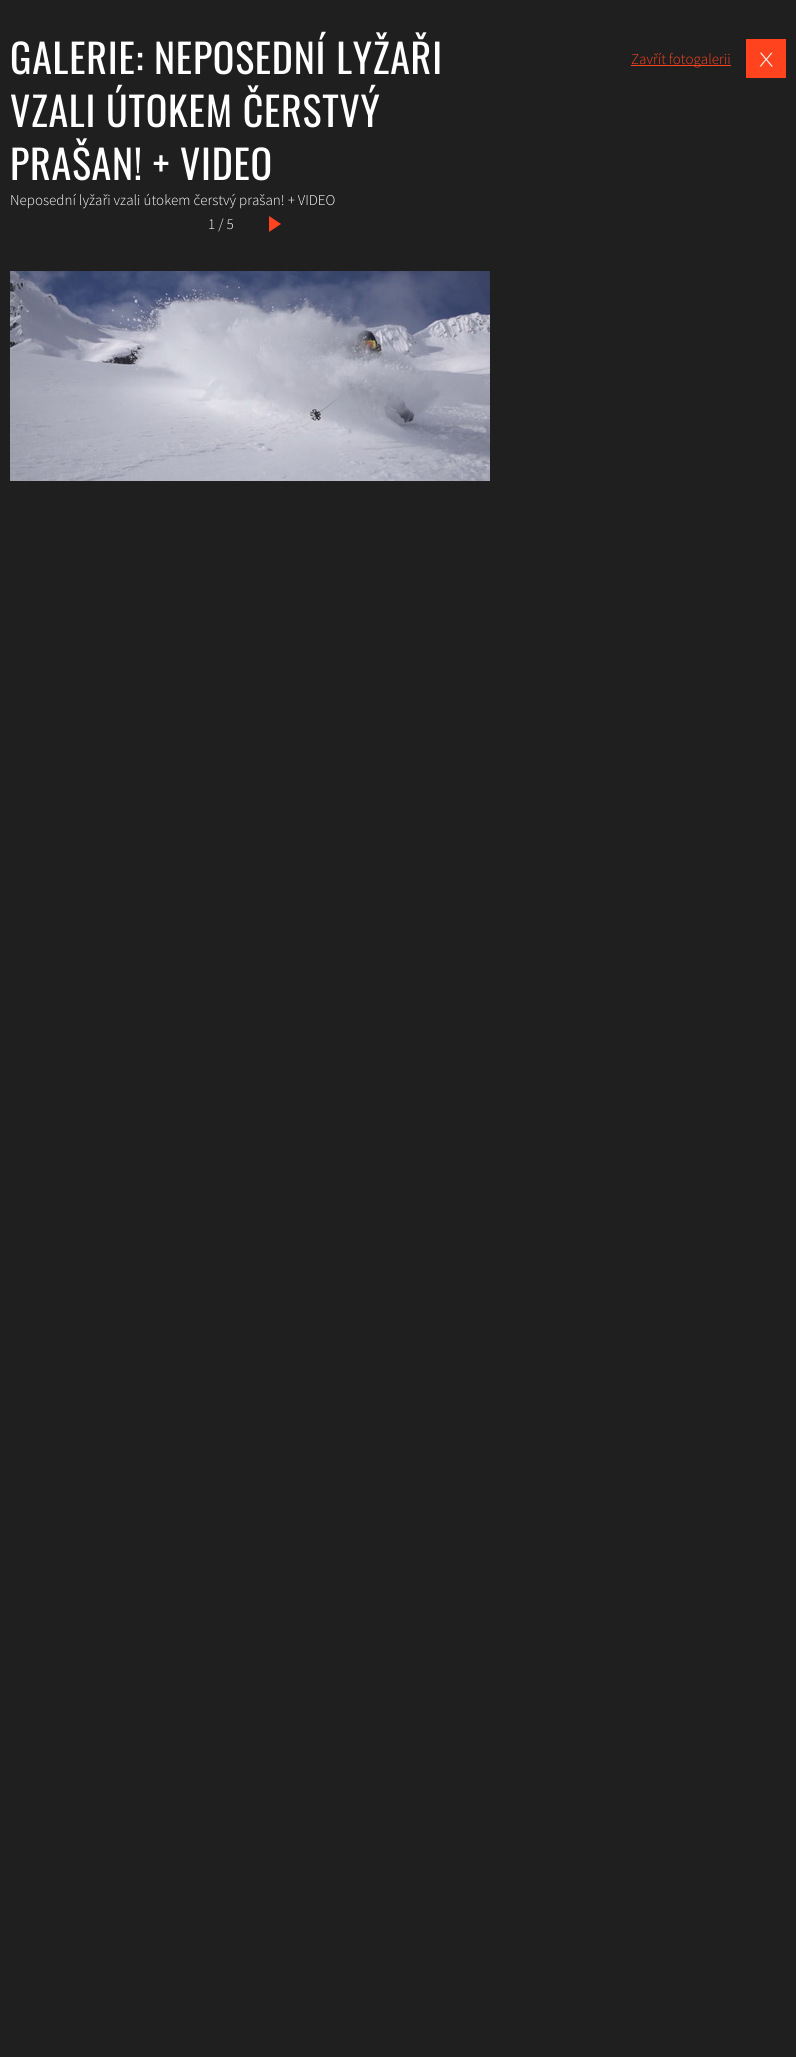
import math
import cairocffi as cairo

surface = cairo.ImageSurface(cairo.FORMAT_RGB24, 796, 2057)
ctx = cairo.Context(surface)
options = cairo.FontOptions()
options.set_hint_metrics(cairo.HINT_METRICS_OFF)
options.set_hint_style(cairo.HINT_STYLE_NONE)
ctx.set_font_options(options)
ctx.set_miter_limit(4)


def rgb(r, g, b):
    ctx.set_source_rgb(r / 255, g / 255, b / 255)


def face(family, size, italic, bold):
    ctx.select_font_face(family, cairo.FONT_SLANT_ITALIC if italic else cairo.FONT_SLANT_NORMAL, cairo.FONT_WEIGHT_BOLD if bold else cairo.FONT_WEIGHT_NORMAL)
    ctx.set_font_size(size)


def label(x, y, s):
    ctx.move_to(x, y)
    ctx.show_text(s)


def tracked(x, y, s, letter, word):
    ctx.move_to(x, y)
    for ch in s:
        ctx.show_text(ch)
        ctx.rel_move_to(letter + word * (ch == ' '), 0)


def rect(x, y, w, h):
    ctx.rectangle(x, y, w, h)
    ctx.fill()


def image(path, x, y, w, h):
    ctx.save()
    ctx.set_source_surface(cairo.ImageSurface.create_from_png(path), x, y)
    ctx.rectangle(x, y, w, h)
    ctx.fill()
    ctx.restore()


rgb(31, 31, 31)
ctx.paint()
face('Oswald', 40, 0, 0)
rgb(255, 255, 255)
tracked(10, 74, 'GALERIE: NEPOSEDNÍ LYŽAŘI', 0.75, 0)
tracked(10, 127, 'VZALI ÚTOKEM ČERSTVÝ', 0.75, 0)
tracked(10, 180, 'PRAŠAN! + VIDEO', 0.75, 0)
face('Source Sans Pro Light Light', 15, 0, 0)
label(10, 205, 'Neposední lyžaři vzali útokem čerstvý prašan! + VIDEO')
label(208, 229, '1 / 5')
rgb(255, 67, 31)
ctx.new_path()
ctx.move_to(269, 232)
ctx.line_to(269, 216)
ctx.line_to(281, 224)
ctx.close_path()
ctx.fill()
rect(631, 65, 100, 1)
label(631, 64, 'Zavřít fotogalerii')
rect(746, 39, 40, 39)
image('image0.png', 759, 52, 14, 15)
image('image1.png', 10, 271, 480, 210)
surface.write_to_png('render.png')
